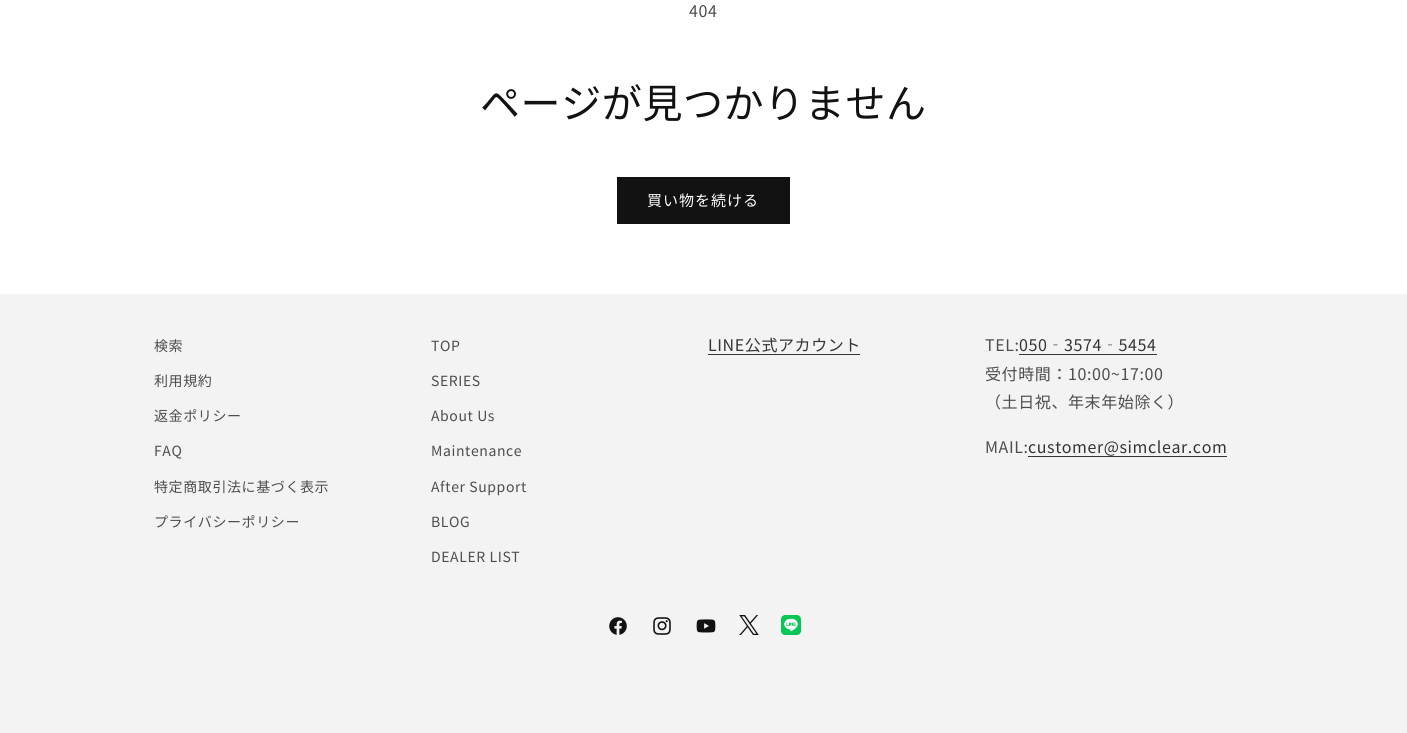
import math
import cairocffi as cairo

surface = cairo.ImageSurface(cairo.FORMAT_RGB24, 1407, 733)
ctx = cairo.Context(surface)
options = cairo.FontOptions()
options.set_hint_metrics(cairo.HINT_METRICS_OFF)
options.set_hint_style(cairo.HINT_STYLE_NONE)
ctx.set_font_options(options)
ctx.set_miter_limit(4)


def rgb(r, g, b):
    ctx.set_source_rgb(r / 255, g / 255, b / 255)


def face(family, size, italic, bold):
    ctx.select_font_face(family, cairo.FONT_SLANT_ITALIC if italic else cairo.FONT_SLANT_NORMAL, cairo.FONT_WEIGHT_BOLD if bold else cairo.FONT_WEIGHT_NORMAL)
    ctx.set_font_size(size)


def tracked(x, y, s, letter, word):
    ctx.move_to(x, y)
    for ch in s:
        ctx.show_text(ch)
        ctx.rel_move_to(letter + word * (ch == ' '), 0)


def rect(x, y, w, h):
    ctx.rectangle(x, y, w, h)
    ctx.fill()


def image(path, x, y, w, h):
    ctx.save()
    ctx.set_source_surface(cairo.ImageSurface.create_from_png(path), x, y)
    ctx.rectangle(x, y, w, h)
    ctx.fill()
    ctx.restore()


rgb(255, 255, 255)
ctx.paint()
face('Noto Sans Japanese', 16, 0, 0)
rgb(77, 77, 77)
tracked(689, 17, '404', 0.6, 0)
face('Noto Sans Japanese', 40, 0, 0)
rgb(18, 18, 18)
tracked(480, 118, 'ページが見つかりません', 0.6, 0)
rect(617, 177, 173, 47)
face('Noto Sans Japanese', 15, 0, 0)
rgb(255, 255, 255)
tracked(647, 206, '買い物を続ける', 1, 0)
rgb(243, 243, 243)
rect(0, 294, 1407, 439)
face('Noto Sans Japanese', 14, 0, 0)
rgb(77, 77, 77)
tracked(154, 351, '検索', 0.6, 0)
tracked(154, 386, '利用規約', 0.6, 0)
tracked(154, 421, '返金ポリシー', 0.6, 0)
tracked(154, 456, 'FAQ', 0.6, 0)
tracked(154, 492, '特定商取引法に基づく表示', 0.6, 0)
tracked(154, 527, 'プライバシーポリシー', 0.6, 0)
tracked(431, 351, 'TOP', 0.6, 0)
tracked(431, 386, 'SERIES', 0.6, 0)
tracked(431, 421, 'About Us', 0.6, 0)
tracked(431, 456, 'Maintenance', 0.6, 0)
tracked(431, 492, 'After Support', 0.6, 0)
tracked(431, 527, 'BLOG', 0.6, 0)
tracked(431, 562, 'DEALER LIST', 0.6, 0)
face('Noto Sans Japanese', 16, 0, 0)
rgb(52, 52, 52)
tracked(708, 351, 'LINE公式アカウント', 0.6, 0)
rect(708, 354, 152, 1)
rgb(77, 77, 77)
tracked(985, 351, 'TEL:', 0.6, 0)
rgb(52, 52, 52)
tracked(1019, 351, '050‐3574‐5454', 0.6, 0)
rect(1019, 354, 138, 1)
rgb(77, 77, 77)
tracked(985, 380, '受付時間：10:00~17:00', 0.6, 0)
tracked(985, 408, '（土日祝、年末年始除く）', 0.6, 0)
tracked(985, 453, 'MAIL:', 0.6, 0)
rgb(52, 52, 52)
tracked(1028, 453, 'customer@simclear.com', 0.6, 0)
rect(1028, 456, 199, 1)
image('image0.png', 609, 617, 18, 18)
image('image1.png', 653, 617, 18, 18)
image('image2.png', 696, 619, 20, 14)
image('image3.png', 739, 615, 20, 20)
image('image4.png', 781, 615, 20, 20)
surface.write_to_png('render.png')
